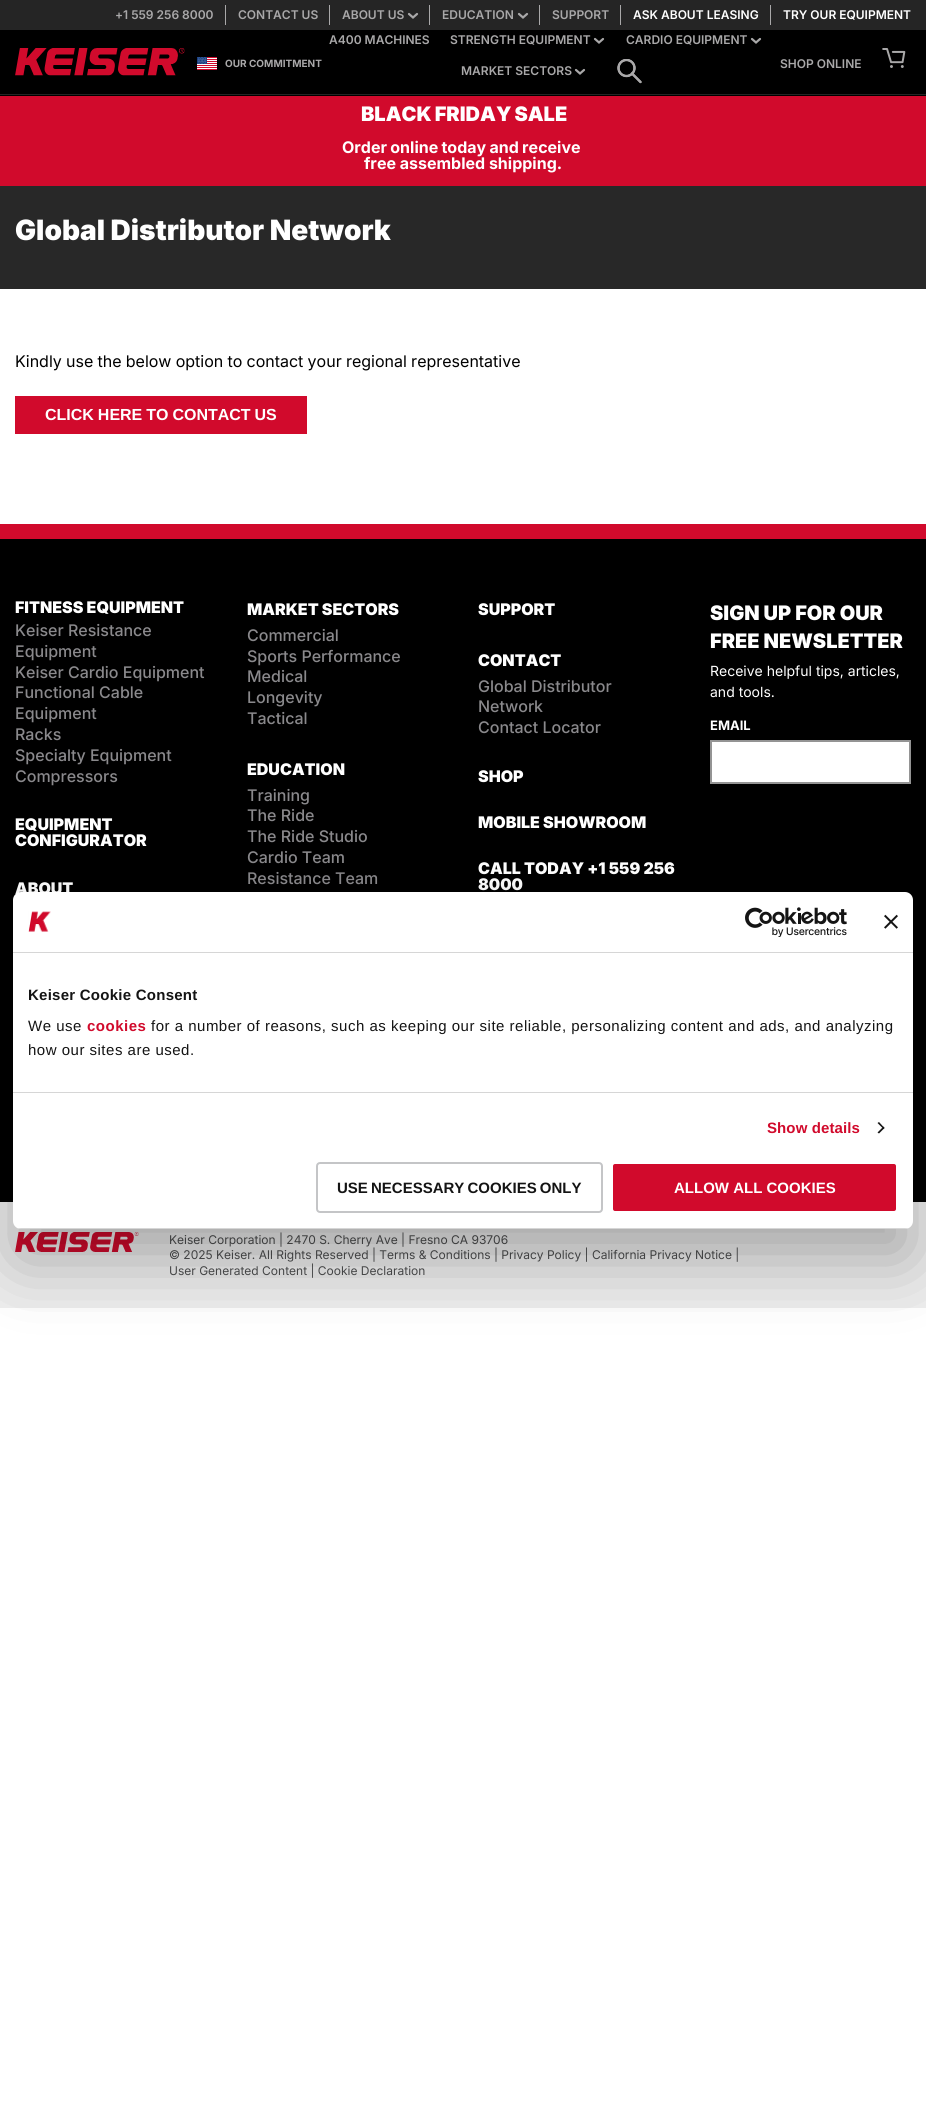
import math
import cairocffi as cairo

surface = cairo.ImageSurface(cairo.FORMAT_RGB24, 926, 2121)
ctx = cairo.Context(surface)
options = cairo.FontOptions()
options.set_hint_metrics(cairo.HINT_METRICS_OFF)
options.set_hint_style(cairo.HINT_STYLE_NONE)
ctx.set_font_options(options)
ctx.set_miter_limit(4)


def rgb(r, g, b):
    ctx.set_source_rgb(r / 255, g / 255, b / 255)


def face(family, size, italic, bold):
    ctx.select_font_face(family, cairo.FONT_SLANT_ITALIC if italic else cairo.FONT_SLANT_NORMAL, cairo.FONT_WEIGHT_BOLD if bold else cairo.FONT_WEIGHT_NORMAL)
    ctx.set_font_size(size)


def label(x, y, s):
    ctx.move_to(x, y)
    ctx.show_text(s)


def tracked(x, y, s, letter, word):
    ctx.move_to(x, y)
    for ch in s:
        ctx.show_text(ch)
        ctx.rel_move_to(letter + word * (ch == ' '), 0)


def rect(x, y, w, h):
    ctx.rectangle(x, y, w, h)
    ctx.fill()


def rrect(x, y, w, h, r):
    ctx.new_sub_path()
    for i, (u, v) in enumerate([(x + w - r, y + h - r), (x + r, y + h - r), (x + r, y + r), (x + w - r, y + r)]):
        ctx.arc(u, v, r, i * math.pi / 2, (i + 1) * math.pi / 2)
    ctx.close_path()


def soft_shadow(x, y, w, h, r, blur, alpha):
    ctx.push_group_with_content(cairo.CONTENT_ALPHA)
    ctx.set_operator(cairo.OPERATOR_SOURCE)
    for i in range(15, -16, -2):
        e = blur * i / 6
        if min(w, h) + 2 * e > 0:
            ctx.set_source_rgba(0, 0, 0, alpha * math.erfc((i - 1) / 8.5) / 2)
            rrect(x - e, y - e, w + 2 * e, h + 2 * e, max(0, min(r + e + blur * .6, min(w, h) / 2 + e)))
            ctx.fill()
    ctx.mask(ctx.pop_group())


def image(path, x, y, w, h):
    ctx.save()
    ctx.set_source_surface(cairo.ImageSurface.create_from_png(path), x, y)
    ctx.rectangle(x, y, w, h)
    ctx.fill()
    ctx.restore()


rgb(255, 255, 255)
ctx.paint()
rgb(0, 0, 0)
rect(0, 30, 926, 66)
rgb(37, 37, 37)
rect(0, 0, 926, 30)
face('Inter SemiBold', 12, 0, 0)
rgb(169, 168, 169)
label(115, 19, '+1 559 256 8000')
rect(225, 5, 1, 20)
label(238, 19, 'CONTACT US')
rect(329, 5, 1, 20)
label(342, 19, 'ABOUT US')
ctx.new_path()
ctx.move_to(417, 14)
ctx.line_to(413, 17.5)
ctx.line_to(409, 14)
ctx.set_line_width(2.2)
ctx.set_line_cap(cairo.LINE_CAP_ROUND)
ctx.stroke()
rect(429, 5, 1, 20)
label(442, 19, 'EDUCATION')
ctx.new_path()
ctx.move_to(527, 14)
ctx.line_to(523, 17.5)
ctx.line_to(519, 14)
ctx.stroke()
rect(539, 5, 1, 20)
label(552, 19, 'SUPPORT')
rect(620, 5, 1, 20)
rgb(255, 255, 255)
label(633, 19, 'ASK ABOUT LEASING')
rgb(169, 168, 169)
rect(770, 5, 1, 20)
rgb(255, 255, 255)
label(783, 19, 'TRY OUR EQUIPMENT')
rgb(37, 37, 37)
rect(0, 94, 926, 1)
image('image0.png', 15, 48, 170, 28)
image('image1.png', 197, 57, 20, 13)
face('Inter', 10, 0, 1)
rgb(169, 168, 169)
label(225, 67, 'OUR COMMITMENT')
face('Inter SemiBold', 12, 0, 0)
label(329, 44, 'A400 MACHINES')
label(450, 44, 'STRENGTH EQUIPMENT')
ctx.new_path()
ctx.move_to(603, 39)
ctx.line_to(599, 42.5)
ctx.line_to(595, 39)
ctx.stroke()
label(626, 44, 'CARDIO EQUIPMENT')
ctx.new_path()
ctx.move_to(760, 39)
ctx.line_to(756, 42.5)
ctx.line_to(752, 39)
ctx.stroke()
label(461, 75, 'MARKET SECTORS')
ctx.new_path()
ctx.move_to(584, 70)
ctx.line_to(580, 73.5)
ctx.line_to(576, 70)
ctx.stroke()
ctx.arc(626.5, 68, 8, 0, 2 * math.pi)
rgb(255, 255, 255)
ctx.set_line_width(1.8)
ctx.set_line_cap(cairo.LINE_CAP_BUTT)
ctx.stroke()
ctx.new_path()
ctx.move_to(640.5, 82)
ctx.line_to(632, 73.5)
ctx.set_line_cap(cairo.LINE_CAP_ROUND)
ctx.set_line_join(cairo.LINE_JOIN_ROUND)
ctx.stroke()
ctx.save()
ctx.rectangle(613, 59, 33, 24)
ctx.clip()
ctx.arc(626.5, 68, 8, 0, 2 * math.pi)
rgb(169, 168, 169)
ctx.set_line_width(2.4)
ctx.set_line_cap(cairo.LINE_CAP_BUTT)
ctx.set_line_join(cairo.LINE_JOIN_MITER)
ctx.stroke()
ctx.restore()
ctx.new_path()
ctx.move_to(640.5, 82)
ctx.line_to(632, 73.5)
rgb(169, 168, 169)
ctx.set_line_width(2.4)
ctx.stroke()
label(780, 68, 'SHOP ONLINE')
image('image2.png', 882, 48, 24, 20)
rgb(209, 10, 44)
rect(0, 96, 926, 90)
face('Inter Black', 20, 0, 0)
rgb(255, 255, 255)
tracked(361, 121, 'BLACK FRIDAY SALE', 0, -1)
face('Inter', 16, 0, 1)
tracked(342, 153, 'Order online today and receive', 0, -0.5)
label(364, 169, 'free assembled shipping.')
rgb(40, 40, 40)
rect(0, 186, 926, 103)
face('Inter Black', 28, 0, 0)
rgb(255, 255, 255)
label(15, 240, 'Global Distributor Network')
face('Inter', 16, 0, 0)
rgb(0, 0, 0)
tracked(15, 367, 'Kindly use the below option to contact your regional representative', 0, -0.25)
rgb(209, 10, 44)
rect(15, 396, 292, 38)
face('Liberation Sans', 16, 0, 1)
rgb(255, 255, 255)
tracked(45, 420, 'CLICK HERE TO CONTACT US', 0, -0.5)
rgb(209, 10, 44)
rect(0, 524, 926, 15)
rgb(0, 0, 0)
rect(0, 539, 926, 663)
face('Inter Black', 16, 0, 0)
rgb(255, 255, 255)
label(15, 613, 'FITNESS EQUIPMENT')
face('Inter Medium', 16, 0, 0)
rgb(138, 137, 140)
label(15, 636, 'Keiser Resistance')
label(15, 657, 'Equipment')
label(15, 678, 'Keiser Cardio Equipment')
label(15, 698, 'Functional Cable')
label(15, 719, 'Equipment')
label(15, 740, 'Racks')
label(15, 761, 'Specialty Equipment')
label(15, 782, 'Compressors')
face('Inter Black', 16, 0, 0)
rgb(255, 255, 255)
label(15, 830, 'EQUIPMENT')
label(15, 846, 'CONFIGURATOR')
label(15, 894, 'ABOUT')
label(247, 615, 'MARKET SECTORS')
face('Inter Medium', 16, 0, 0)
rgb(138, 137, 140)
label(247, 641, 'Commercial')
label(247, 662, 'Sports Performance')
label(247, 682, 'Medical')
label(247, 703, 'Longevity')
label(247, 724, 'Tactical')
face('Inter Black', 16, 0, 0)
rgb(255, 255, 255)
label(247, 775, 'EDUCATION')
face('Inter Medium', 16, 0, 0)
rgb(138, 137, 140)
label(247, 801, 'Training')
label(247, 821, 'The Ride')
label(247, 842, 'The Ride Studio')
label(247, 863, 'Cardio Team')
label(247, 884, 'Resistance Team')
face('Inter Black', 16, 0, 0)
rgb(255, 255, 255)
label(478, 615, 'SUPPORT')
label(478, 666, 'CONTACT')
face('Inter Medium', 16, 0, 0)
rgb(138, 137, 140)
label(478, 692, 'Global Distributor')
label(478, 712, 'Network')
label(478, 733, 'Contact Locator')
face('Inter Black', 16, 0, 0)
rgb(255, 255, 255)
label(478, 782, 'SHOP')
label(478, 828, 'MOBILE SHOWROOM')
label(478, 874, 'CALL TODAY +1 559 256')
label(478, 890, '8000')
face('Inter Black', 20, 0, 0)
label(710, 620, 'SIGN UP FOR OUR')
label(710, 648, 'FREE NEWSLETTER')
face('Inter', 14, 0, 0)
label(710, 676, 'Receive helpful tips, articles,')
label(710, 697, 'and tools.')
face('Inter', 13, 0, 1)
label(710, 730, 'EMAIL')
ctx.rectangle(711, 741, 199, 42)
ctx.fill_preserve()
rgb(148, 148, 148)
ctx.set_line_width(2)
ctx.set_line_cap(cairo.LINE_CAP_BUTT)
ctx.set_line_join(cairo.LINE_JOIN_MITER)
ctx.stroke()
rgb(238, 238, 238)
rect(0, 1202, 926, 106)
image('image3.png', 15, 1232, 124, 20)
face('Inter', 12, 0, 0)
rgb(77, 78, 79)
label(169, 1244, 'Keiser Corporation | 2470 S. Cherry Ave | Fresno CA 93706')
label(169, 1259, '© 2025 Keiser. All Rights Reserved | Terms & Conditions | Privacy Policy | California Privacy Notice |')
label(169, 1275, 'User Generated Content | Cookie Declaration')
rgb(0, 0, 0)
soft_shadow(13, 924, 900, 337, 8, 34, 0.3)
rgb(255, 255, 255)
rrect(13, 892, 900, 337, 8)
ctx.fill()
rgb(214, 214, 214)
rect(13, 952, 900, 1)
image('image4.png', 28, 911, 23, 21)
image('image5.png', 745, 907, 102, 30)
image('image6.png', 884, 914, 14, 15)
rect(13, 1092, 900, 1)
face('Liberation Sans', 15, 0, 1)
rgb(20, 20, 20)
tracked(28, 1000, 'Keiser Cookie Consent', 0.25, 0)
face('Liberation Sans', 15, 0, 0)
tracked(28, 1031, 'We use', 0.5, 0)
face('Liberation Sans', 15, 0, 1)
rgb(209, 10, 44)
tracked(87, 1031, 'cookies', 0.5, 0)
face('Liberation Sans', 15, 0, 0)
rgb(20, 20, 20)
tracked(151, 1031, 'for a number of reasons, such as keeping our site reliable, personalizing content and ads, and analyzing', 0.5, 0)
tracked(28, 1055, 'how our sites are used.', 0.5, 0)
face('Liberation Sans', 15, 0, 1)
rgb(209, 10, 44)
tracked(767, 1133, 'Show details', 0.1, 0)
rgb(20, 20, 20)
ctx.new_path()
ctx.move_to(879, 1122)
ctx.line_to(884.5, 1128)
ctx.line_to(883.5, 1129)
ctx.line_to(877.5, 1123)
ctx.close_path()
ctx.fill()
ctx.new_path()
ctx.move_to(883.5, 1126.5)
ctx.line_to(884.5, 1128)
ctx.line_to(879, 1133.5)
ctx.line_to(877.5, 1132.5)
ctx.close_path()
ctx.fill()
ctx.save()
rrect(13, 892, 900, 337, 8)
ctx.clip()
rgb(214, 214, 214)
rect(13, 1228, 900, 1)
ctx.restore()
rrect(317, 1163, 285, 49, 3)
rgb(196, 197, 199)
ctx.stroke()
rgb(20, 20, 20)
tracked(337, 1193, 'USE NECESSARY COOKIES ONLY', 0, -1)
rgb(209, 10, 44)
rrect(612, 1163, 285, 49, 3)
ctx.fill_preserve()
rgb(255, 255, 255)
ctx.stroke()
label(674, 1193, 'ALLOW ALL COOKIES')
surface.write_to_png('render.png')
